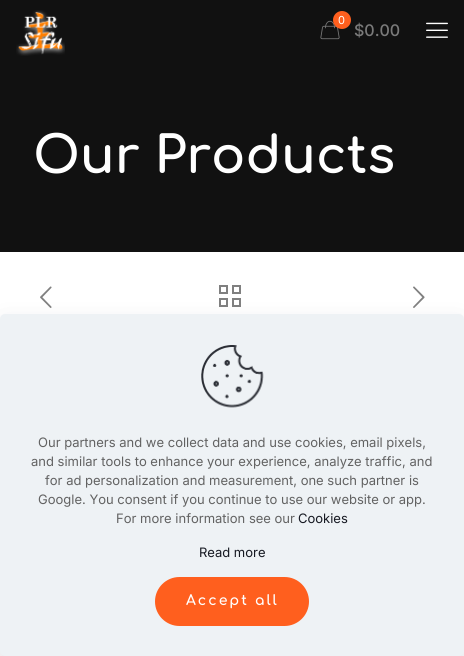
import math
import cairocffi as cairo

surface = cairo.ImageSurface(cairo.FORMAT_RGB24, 464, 656)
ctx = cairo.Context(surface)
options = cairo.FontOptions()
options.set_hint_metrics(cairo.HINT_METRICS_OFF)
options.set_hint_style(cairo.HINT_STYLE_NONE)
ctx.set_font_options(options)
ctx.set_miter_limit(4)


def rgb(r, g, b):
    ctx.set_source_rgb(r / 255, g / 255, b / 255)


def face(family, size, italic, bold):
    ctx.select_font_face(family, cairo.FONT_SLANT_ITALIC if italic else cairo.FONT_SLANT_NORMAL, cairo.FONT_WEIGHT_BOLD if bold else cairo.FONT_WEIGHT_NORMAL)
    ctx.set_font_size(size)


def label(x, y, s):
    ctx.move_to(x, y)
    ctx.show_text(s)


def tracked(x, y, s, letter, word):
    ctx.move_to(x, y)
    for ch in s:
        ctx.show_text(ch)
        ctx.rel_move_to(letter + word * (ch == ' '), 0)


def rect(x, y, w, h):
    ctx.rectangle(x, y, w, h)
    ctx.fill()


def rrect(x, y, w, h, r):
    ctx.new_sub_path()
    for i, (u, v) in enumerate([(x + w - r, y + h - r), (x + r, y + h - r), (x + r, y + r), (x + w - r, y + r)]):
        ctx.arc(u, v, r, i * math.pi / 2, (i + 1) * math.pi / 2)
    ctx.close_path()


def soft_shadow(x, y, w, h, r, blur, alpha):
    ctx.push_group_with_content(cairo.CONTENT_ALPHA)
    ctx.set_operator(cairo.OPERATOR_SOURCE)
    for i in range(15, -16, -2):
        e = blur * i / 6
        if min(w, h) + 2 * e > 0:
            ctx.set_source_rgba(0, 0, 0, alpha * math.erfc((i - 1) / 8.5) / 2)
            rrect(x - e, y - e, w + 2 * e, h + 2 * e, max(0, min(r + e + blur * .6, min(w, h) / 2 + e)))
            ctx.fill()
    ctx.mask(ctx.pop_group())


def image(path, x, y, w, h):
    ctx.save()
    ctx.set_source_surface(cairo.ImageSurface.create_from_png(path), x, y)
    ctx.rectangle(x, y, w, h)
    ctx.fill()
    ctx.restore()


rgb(255, 255, 255)
ctx.paint()
rgb(17, 17, 17)
rect(0, 0, 464, 252)
image('image0.png', 16, 10, 49, 46)
image('image1.png', 426, 22, 22, 16)
image('image2.png', 320, 20, 20, 20)
rgb(255, 95, 30)
ctx.arc(342, 20, 9, 0, 2 * math.pi)
ctx.fill()
face('Inter', 11, 0, 0)
rgb(255, 255, 255)
label(338, 24, '0')
face('Inter Medium', 16, 0, 0)
rgb(122, 122, 122)
label(354, 36, '$0.00')
face('Comfortaa', 51, 0, 1)
rgb(255, 255, 255)
label(33, 173, 'Our Products')
image('image3.png', 40, 286, 12, 22)
image('image4.png', 219, 285, 22, 22)
image('image5.png', 413, 286, 12, 22)
rgb(1, 7, 39)
soft_shadow(0, 329, 464, 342, 5, 15, 0.13)
rgb(238, 242, 245)
rrect(0, 314, 464, 342, 5)
ctx.fill()
image('image6.png', 201, 345, 63, 63)
face('Inter', 13, 0, 0)
rgb(98, 98, 98)
label(38, 447, 'Our partners and we collect data and use cookies, email pixels,')
label(31, 466, 'and similar tools to enhance your experience, analyze traffic, and')
label(45, 485, 'for ad personalization and measurement, one such partner is')
label(38, 504, 'Google. You consent if you continue to use our website or app.')
label(116, 523, 'For more information see our')
rgb(22, 25, 34)
label(298, 523, 'Cookies')
label(199, 557, 'Read more')
rgb(255, 95, 30)
rrect(155, 577, 154, 49, 24.5)
ctx.fill()
face('Comfortaa', 14, 0, 1)
rgb(255, 255, 255)
tracked(186, 605, 'Accept all', 2, 0)
surface.write_to_png('render.png')
